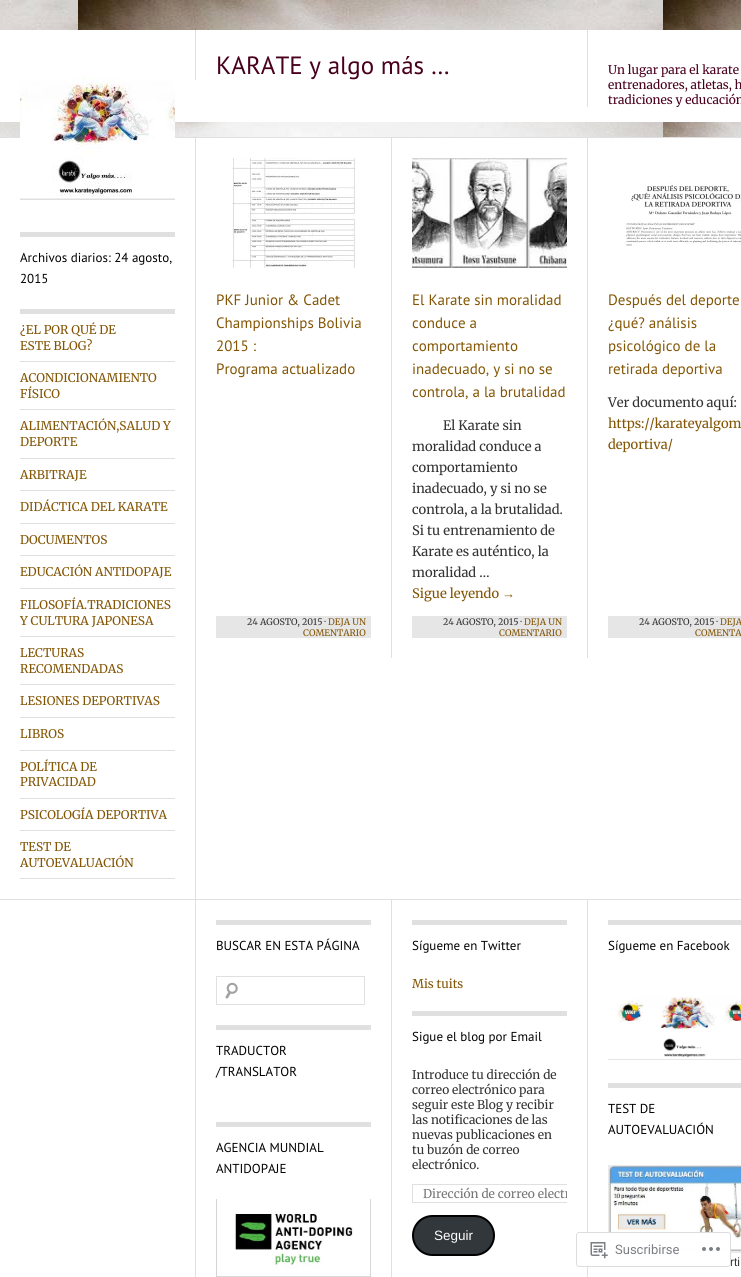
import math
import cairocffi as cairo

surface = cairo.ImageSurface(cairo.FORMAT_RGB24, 741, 1277)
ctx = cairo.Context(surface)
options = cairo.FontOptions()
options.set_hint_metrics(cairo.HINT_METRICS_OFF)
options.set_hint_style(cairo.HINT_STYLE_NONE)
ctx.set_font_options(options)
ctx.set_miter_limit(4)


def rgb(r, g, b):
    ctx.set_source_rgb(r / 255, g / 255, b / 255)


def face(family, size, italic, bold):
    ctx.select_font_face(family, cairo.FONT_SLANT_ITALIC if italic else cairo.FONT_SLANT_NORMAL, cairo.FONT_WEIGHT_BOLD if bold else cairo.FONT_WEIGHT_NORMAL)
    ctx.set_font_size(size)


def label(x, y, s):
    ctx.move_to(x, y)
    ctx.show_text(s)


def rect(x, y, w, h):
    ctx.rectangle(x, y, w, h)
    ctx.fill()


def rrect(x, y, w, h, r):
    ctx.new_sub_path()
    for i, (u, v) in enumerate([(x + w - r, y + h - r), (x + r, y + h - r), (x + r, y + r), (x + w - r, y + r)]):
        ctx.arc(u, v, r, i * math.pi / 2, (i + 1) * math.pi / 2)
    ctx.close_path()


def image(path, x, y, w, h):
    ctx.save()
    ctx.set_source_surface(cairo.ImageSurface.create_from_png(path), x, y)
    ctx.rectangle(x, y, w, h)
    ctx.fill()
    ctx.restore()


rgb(255, 255, 255)
ctx.paint()
image('image0.png', 0, 0, 741, 137)
rgb(255, 255, 255)
rect(0, 30, 741, 92)
rgb(224, 224, 224)
rect(0, 137, 741, 1)
image('image1.png', 20, 77, 155, 123)
rect(195, 30, 1, 50)
face('PT Sans', 25, 0, 0)
rgb(73, 0, 29)
label(216, 74, 'KARATE y algo más …')
rgb(224, 224, 224)
rect(587, 30, 1, 77)
face('Merriweather', 12, 0, 0)
rgb(73, 0, 29)
label(608, 74, 'Un lugar para el karate')
label(608, 89, 'entrenadores, atletas, h')
label(608, 104, 'tradiciones y educación')
rgb(224, 224, 224)
rect(195, 137, 1, 762)
rect(20, 232, 155, 5)
face('PT Sans', 13, 0, 0)
rgb(0, 0, 0)
label(20, 262, 'Archivos diarios: 24 agosto,')
label(20, 283, '2015')
rgb(224, 224, 224)
rect(20, 309, 155, 5)
rect(20, 361, 155, 1)
face('Merriweather', 12, 0, 0)
rgb(131, 85, 4)
label(20, 334, '¿EL POR QUÉ DE')
label(20, 350, 'ESTE BLOG?')
rgb(224, 224, 224)
rect(20, 409, 155, 1)
rgb(131, 85, 4)
label(20, 382, 'ACONDICIONAMIENTO')
label(20, 398, 'FÍSICO')
rgb(224, 224, 224)
rect(20, 458, 155, 1)
rgb(131, 85, 4)
label(20, 430, 'ALIMENTACIÓN,SALUD Y')
label(20, 446, 'DEPORTE')
rgb(224, 224, 224)
rect(20, 490, 155, 1)
rgb(131, 85, 4)
label(20, 479, 'ARBITRAJE')
rgb(224, 224, 224)
rect(20, 523, 155, 1)
rgb(131, 85, 4)
label(20, 511, 'DIDÁCTICA DEL KARATE')
rgb(224, 224, 224)
rect(20, 555, 155, 1)
rgb(131, 85, 4)
label(20, 544, 'DOCUMENTOS')
rgb(224, 224, 224)
rect(20, 588, 155, 1)
rgb(131, 85, 4)
label(20, 576, 'EDUCACIÓN ANTIDOPAJE')
rgb(224, 224, 224)
rect(20, 636, 155, 1)
rgb(131, 85, 4)
label(20, 609, 'FILOSOFÍA.TRADICIONES')
label(20, 625, 'Y CULTURA JAPONESA')
rgb(224, 224, 224)
rect(20, 684, 155, 1)
rgb(131, 85, 4)
label(20, 657, 'LECTURAS')
label(20, 673, 'RECOMENDADAS')
rgb(224, 224, 224)
rect(20, 717, 155, 1)
rgb(131, 85, 4)
label(20, 705, 'LESIONES DEPORTIVAS')
rgb(224, 224, 224)
rect(20, 750, 155, 1)
rgb(131, 85, 4)
label(20, 738, 'LIBROS')
rgb(224, 224, 224)
rect(20, 798, 155, 1)
rgb(131, 85, 4)
label(20, 771, 'POLÍTICA DE')
label(20, 786, 'PRIVACIDAD')
rgb(224, 224, 224)
rect(20, 830, 155, 1)
rgb(131, 85, 4)
label(20, 819, 'PSICOLOGÍA DEPORTIVA')
rgb(224, 224, 224)
rect(20, 878, 155, 1)
rgb(131, 85, 4)
label(20, 851, 'TEST DE')
label(20, 867, 'AUTOEVALUACIÓN')
rgb(224, 224, 224)
rect(391, 137, 1, 521)
image('image2.png', 232, 158, 124, 110)
face('PT Sans', 15, 0, 0)
rgb(131, 85, 4)
label(216, 305, 'PKF Junior & Cadet')
label(216, 328, 'Championships Bolivia')
label(216, 351, '2015 :')
label(216, 374, 'Programa actualizado')
rgb(230, 230, 230)
rect(216, 616, 155, 22)
face('Merriweather', 9, 0, 0)
rgb(51, 51, 51)
label(247, 625, '24 AGOSTO, 2015 ·')
rgb(131, 85, 4)
label(328, 625, 'DEJA UN')
label(303, 636, 'COMENTARIO')
rgb(224, 224, 224)
rect(587, 137, 1, 521)
image('image3.png', 412, 158, 155, 110)
face('PT Sans', 15, 0, 0)
rgb(131, 85, 4)
label(412, 305, 'El Karate sin moralidad')
label(412, 328, 'conduce a')
label(412, 351, 'comportamiento')
label(412, 374, 'inadecuado, y si no se')
label(412, 397, 'controla, a la brutalidad')
face('Merriweather', 13, 0, 0)
rgb(51, 51, 51)
label(443, 430, 'El Karate sin')
label(412, 451, 'moralidad conduce a')
label(412, 472, 'comportamiento')
label(412, 493, 'inadecuado, y si no se')
label(412, 514, 'controla, a la brutalidad.')
label(412, 535, 'Si tu entrenamiento de')
label(412, 556, 'Karate es auténtico, la')
label(412, 577, 'moralidad …')
rgb(131, 85, 4)
label(412, 598, 'Sigue leyendo')
face('Liberation Serif', 13, 0, 0)
label(502, 598, '→')
rgb(230, 230, 230)
rect(412, 616, 155, 22)
face('Merriweather', 9, 0, 0)
rgb(51, 51, 51)
label(443, 625, '24 AGOSTO, 2015 ·')
rgb(131, 85, 4)
label(524, 625, 'DEJA UN')
label(499, 636, 'COMENTARIO')
image('image4.png', 624, 182, 117, 64)
face('PT Sans', 15, 0, 0)
label(608, 305, 'Después del deporte')
label(608, 328, '¿qué? análisis')
label(608, 351, 'psicológico de la')
label(608, 374, 'retirada deportiva')
face('Merriweather', 13, 0, 0)
rgb(51, 51, 51)
label(608, 407, 'Ver documento aquí:')
rgb(131, 85, 4)
label(608, 428, 'https://karateyalgom')
label(608, 449, 'deportiva/')
rgb(230, 230, 230)
rect(608, 616, 133, 22)
face('Merriweather', 9, 0, 0)
rgb(51, 51, 51)
label(639, 625, '24 AGOSTO, 2015 ·')
rgb(131, 85, 4)
label(720, 625, 'DEJA')
label(695, 636, 'COMENTA')
rgb(224, 224, 224)
rect(0, 899, 741, 1)
rect(195, 900, 1, 377)
rect(391, 900, 1, 377)
rect(216, 920, 155, 5)
face('PT Sans', 13, 0, 0)
rgb(0, 0, 0)
label(216, 950, 'BUSCAR EN ESTA PÁGINA')
image('image5.png', 225, 982, 13, 17)
ctx.rectangle(216.5, 976.5, 148, 28)
rgb(224, 224, 224)
ctx.set_line_width(1)
ctx.stroke()
rect(216, 1025, 155, 5)
rgb(0, 0, 0)
label(216, 1055, 'TRADUCTOR')
label(216, 1076, '/TRANSLATOR')
rgb(224, 224, 224)
rect(216, 1122, 155, 5)
rgb(0, 0, 0)
label(216, 1152, 'AGENCIA MUNDIAL')
label(216, 1173, 'ANTIDOPAJE')
image('image6.png', 216, 1199, 155, 78)
rgb(224, 224, 224)
rect(587, 900, 1, 377)
rect(412, 920, 155, 5)
rgb(0, 0, 0)
label(412, 950, 'Sígueme en Twitter')
face('Merriweather', 12, 0, 0)
rgb(131, 85, 4)
label(412, 988, 'Mis tuits')
rgb(224, 224, 224)
rect(412, 1011, 155, 5)
face('PT Sans', 13, 0, 0)
rgb(0, 0, 0)
label(412, 1041, 'Sigue el blog por Email')
face('Merriweather', 12, 0, 0)
rgb(51, 51, 51)
label(412, 1079, 'Introduce tu dirección de')
label(412, 1094, 'correo electrónico para')
label(412, 1109, 'seguir este Blog y recibir')
label(412, 1124, 'las notificaciones de las')
label(412, 1139, 'nuevas publicaciones en')
label(412, 1154, 'tu buzón de correo')
label(412, 1169, 'electrónico.')
ctx.save()
ctx.rectangle(412, 1011, 155, 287)
ctx.clip()
ctx.rectangle(412.5, 1184.5, 168, 18)
rgb(224, 224, 224)
ctx.stroke()
ctx.restore()
ctx.save()
ctx.rectangle(423, 1186, 144, 15)
ctx.clip()
rgb(117, 117, 117)
label(423, 1198, 'Dirección de correo electr')
ctx.restore()
rgb(50, 55, 60)
rrect(413, 1216, 81, 39, 19.5)
ctx.fill_preserve()
rgb(0, 0, 0)
ctx.set_line_width(2)
ctx.stroke()
face('Liberation Sans', 13.5, 0, 0)
rgb(255, 255, 255)
label(434, 1240, 'Seguir')
rgb(224, 224, 224)
rect(608, 920, 133, 5)
face('PT Sans', 13, 0, 0)
rgb(0, 0, 0)
label(608, 950, 'Sígueme en Facebook')
image('image7.png', 608, 996, 133, 64)
rgb(224, 224, 224)
rect(608, 1083, 133, 5)
rgb(0, 0, 0)
label(608, 1113, 'TEST DE')
label(608, 1134, 'AUTOEVALUACIÓN')
image('image8.png', 608, 1165, 133, 88)
face('Liberation Sans', 12, 0, 0)
rgb(51, 51, 51)
label(730, 1266, 'rti')
ctx.set_source_rgba(1, 1, 1, 0.98)
rrect(576, 1232, 155, 35, 3)
ctx.fill()
rrect(576.5, 1232.5, 154, 34, 2.5)
ctx.set_source_rgba(0.863, 0.863, 0.871, 0.98)
ctx.set_line_width(1)
ctx.stroke()
image('image9.png', 590, 1242, 18, 17)
face('Roboto', 13, 0, 0)
rgb(123, 127, 132)
label(615, 1254, 'Suscribirse')
image('image10.png', 702, 1247, 18, 4)
surface.write_to_png('render.png')
